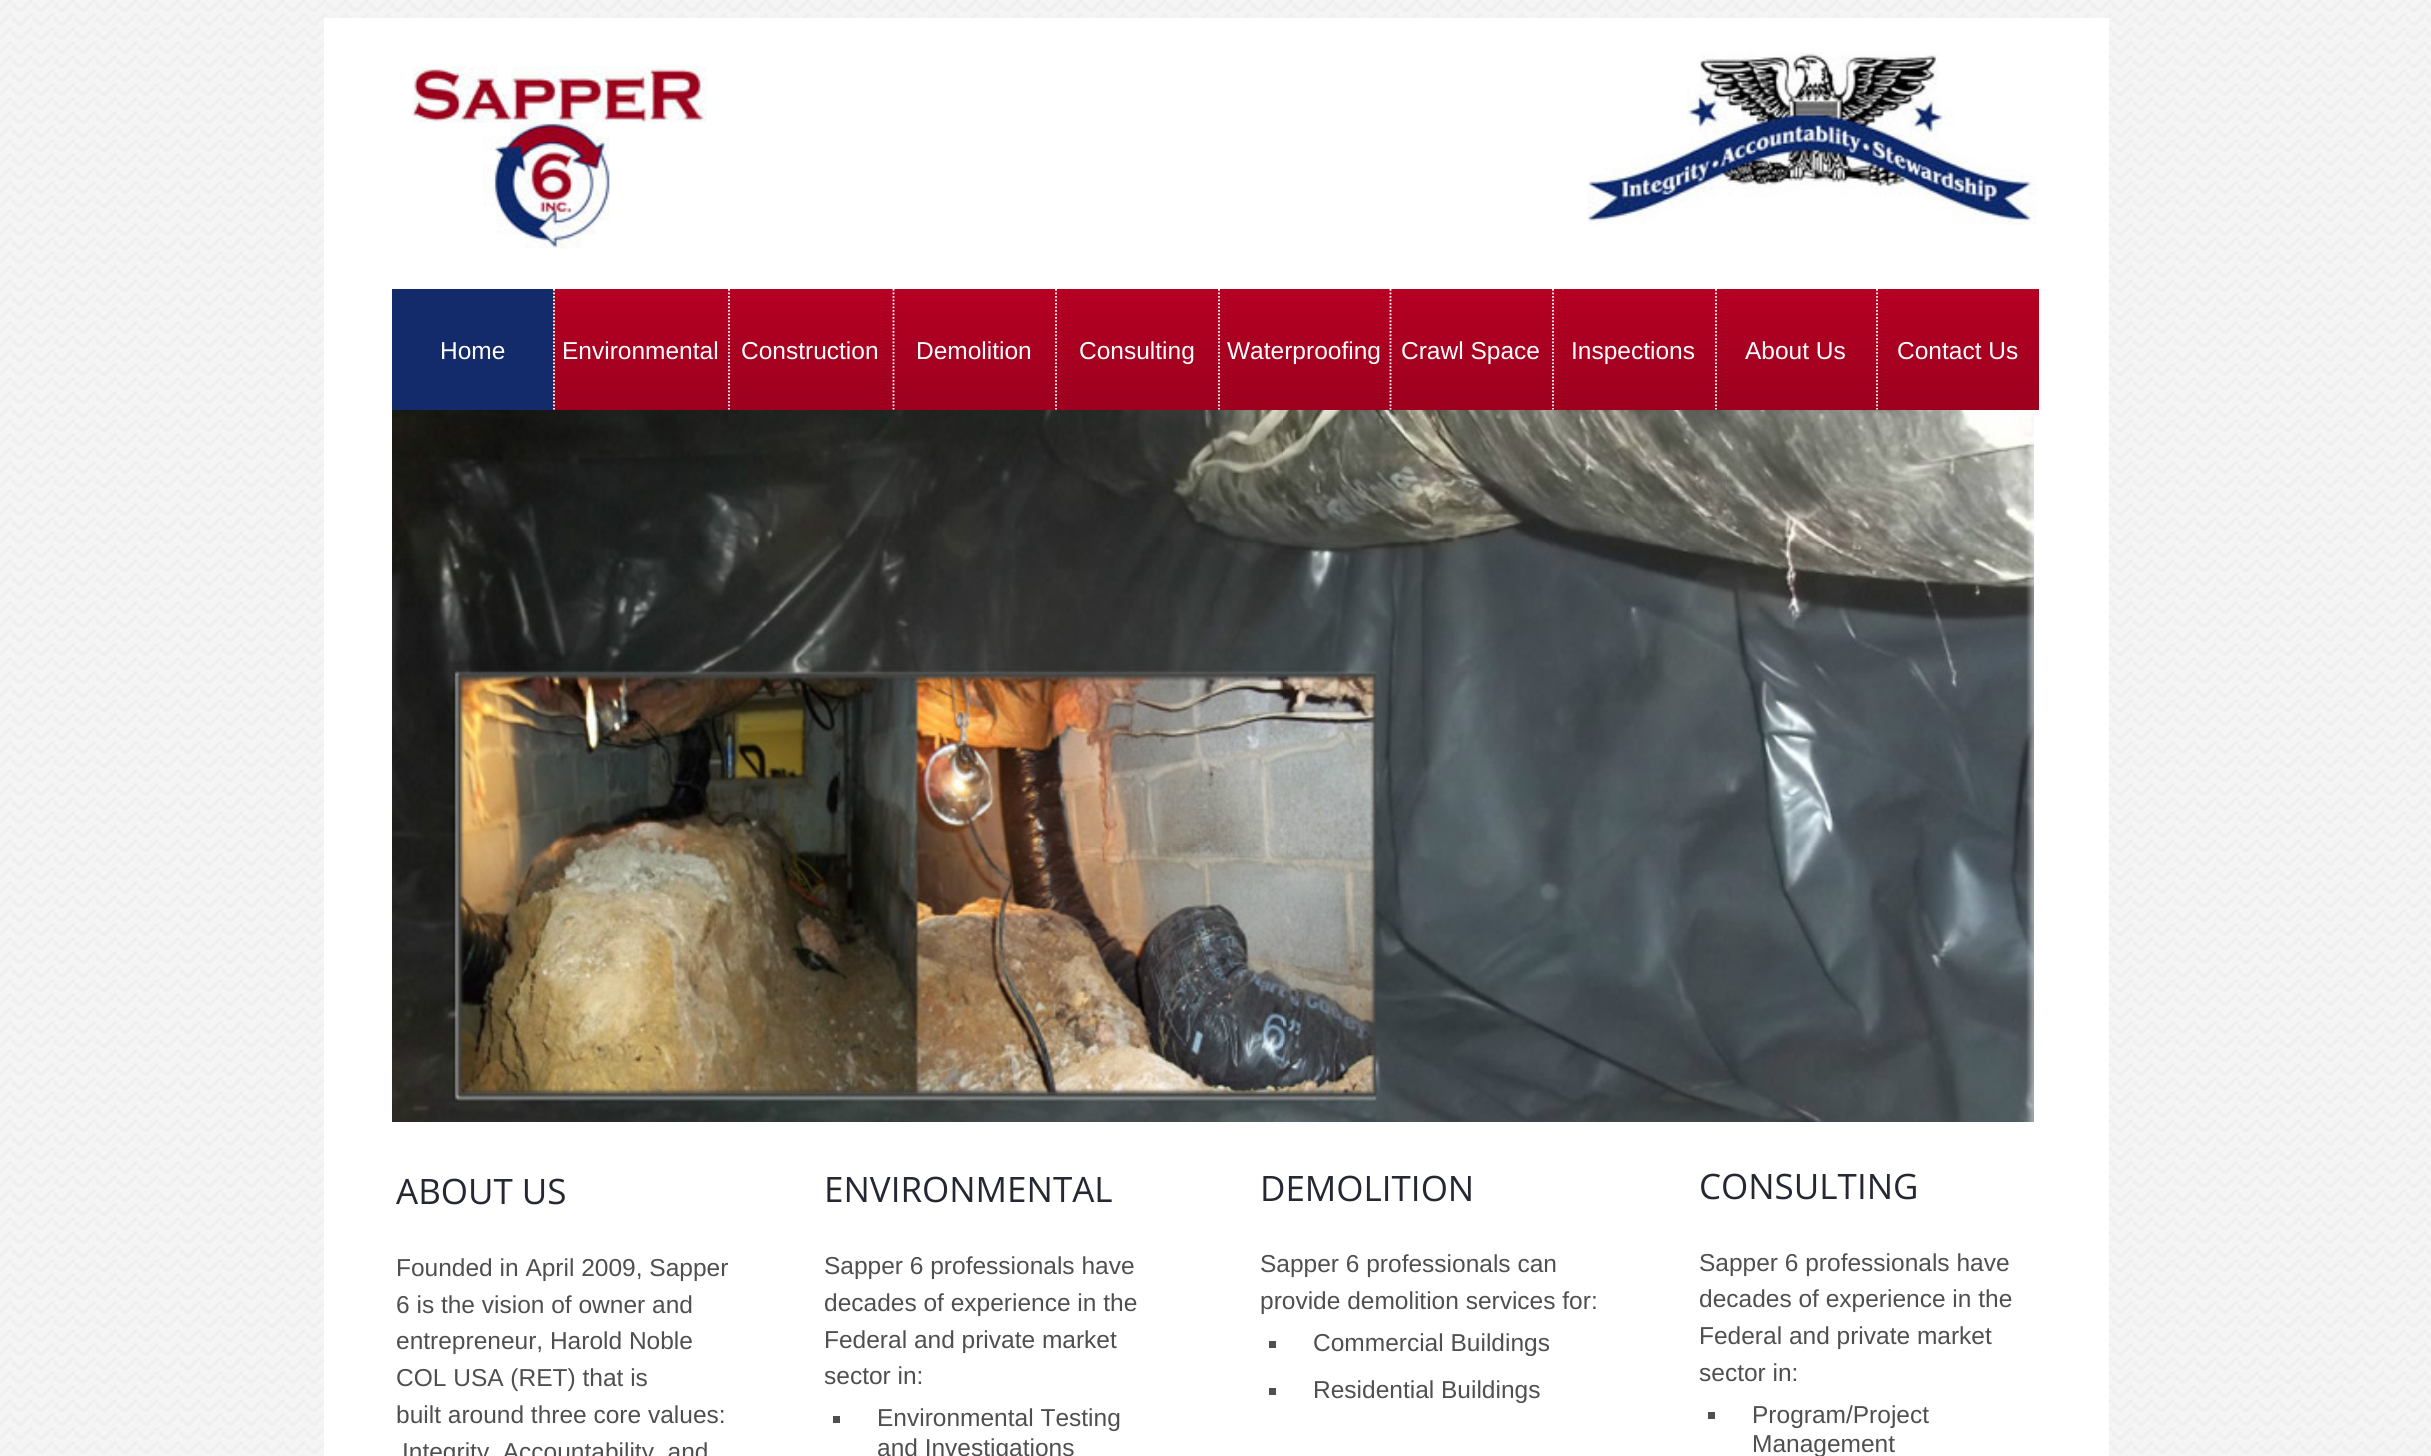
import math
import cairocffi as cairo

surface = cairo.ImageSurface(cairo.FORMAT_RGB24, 2431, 1456)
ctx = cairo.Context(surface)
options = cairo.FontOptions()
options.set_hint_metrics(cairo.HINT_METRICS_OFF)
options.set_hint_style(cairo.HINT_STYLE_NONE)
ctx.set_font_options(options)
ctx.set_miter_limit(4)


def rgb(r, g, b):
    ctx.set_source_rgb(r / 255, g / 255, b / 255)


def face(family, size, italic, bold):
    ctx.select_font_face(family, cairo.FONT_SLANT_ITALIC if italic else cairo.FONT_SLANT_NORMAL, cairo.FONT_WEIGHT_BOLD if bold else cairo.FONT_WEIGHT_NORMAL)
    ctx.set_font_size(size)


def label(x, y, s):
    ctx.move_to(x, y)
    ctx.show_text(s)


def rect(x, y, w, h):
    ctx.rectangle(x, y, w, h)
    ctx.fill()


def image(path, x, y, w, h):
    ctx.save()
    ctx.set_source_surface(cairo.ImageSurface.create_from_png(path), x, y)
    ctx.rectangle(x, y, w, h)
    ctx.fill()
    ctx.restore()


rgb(255, 255, 255)
ctx.paint()
image('image0.png', 0, 0, 2431, 1456)
rgb(255, 255, 255)
rect(324, 18, 1785, 1438)
image('image1.png', 412, 66, 295, 183)
image('image2.png', 1587, 52, 450, 173)
gradient = cairo.LinearGradient(1215, 289, 1215, 410)
gradient.add_color_stop_rgba(0, 0.71, 0, 0.137, 1)
gradient.add_color_stop_rgba(1, 0.616, 0, 0.118, 1)
ctx.set_source(gradient)
rect(553, 289, 1486, 121)
rgb(19, 43, 107)
rect(392, 289, 161, 121)
face('Liberation Sans', 24.5, 0, 0)
rgb(255, 255, 255)
label(440, 359, 'Home')
ctx.new_path()
ctx.move_to(554, 289)
ctx.line_to(554, 409.5)
ctx.set_line_width(1.8)
ctx.set_dash([1.75, 1.75])
ctx.stroke()
label(562, 359, 'Environmental')
ctx.new_path()
ctx.move_to(729, 289)
ctx.line_to(729, 409.5)
ctx.stroke()
label(741, 359, 'Construction')
ctx.new_path()
ctx.move_to(893.5, 289)
ctx.line_to(893.5, 409.5)
ctx.stroke()
label(916, 359, 'Demolition')
ctx.new_path()
ctx.move_to(1056, 289)
ctx.line_to(1056, 409.5)
ctx.stroke()
label(1079, 359, 'Consulting')
ctx.new_path()
ctx.move_to(1219, 289)
ctx.line_to(1219, 409.5)
ctx.stroke()
label(1227, 359, 'Waterproofing')
ctx.new_path()
ctx.move_to(1390.5, 289)
ctx.line_to(1390.5, 409.5)
ctx.stroke()
label(1401, 359, 'Crawl Space')
ctx.new_path()
ctx.move_to(1553, 289)
ctx.line_to(1553, 409.5)
ctx.stroke()
label(1571, 359, 'Inspections')
ctx.new_path()
ctx.move_to(1716, 289)
ctx.line_to(1716, 409.5)
ctx.stroke()
label(1745, 359, 'About Us')
ctx.new_path()
ctx.move_to(1877, 289)
ctx.line_to(1877, 409.5)
ctx.stroke()
label(1897, 359, 'Contact Us')
image('image3.png', 392, 410, 1642, 712)
face('Open Sans', 35, 0, 0)
rgb(37, 40, 50)
label(396, 1204, 'ABOUT US')
face('Liberation Sans', 24.5, 0, 0)
rgb(79, 79, 79)
label(396, 1276, 'Founded in April 2009, Sapper')
label(396, 1313, '6 is the vision of owner and')
label(396, 1349, 'entrepreneur, Harold Noble')
label(396, 1386, 'COL USA (RET) that is')
label(396, 1423, 'built around three core values:')
label(402, 1460, 'Integrity, Accountability, and')
face('Open Sans', 35, 0, 0)
rgb(37, 40, 50)
label(824, 1202, 'ENVIRONMENTAL')
face('Liberation Sans', 24.5, 0, 0)
rgb(79, 79, 79)
label(824, 1274, 'Sapper 6 professionals have')
label(824, 1311, 'decades of experience in the')
label(824, 1348, 'Federal and private market')
label(824, 1384, 'sector in:')
rect(833, 1416, 7, 7)
label(877, 1426, 'Environmental Testing')
label(877, 1456, 'and Investigations')
face('Open Sans', 35, 0, 0)
rgb(37, 40, 50)
label(1260, 1201, 'DEMOLITION')
face('Liberation Sans', 24.5, 0, 0)
rgb(79, 79, 79)
label(1260, 1272, 'Sapper 6 professionals can')
label(1260, 1309, 'provide demolition services for:')
rect(1269, 1341, 7, 7)
label(1313, 1351, 'Commercial Buildings')
rect(1269, 1388, 7, 7)
label(1313, 1398, 'Residential Buildings')
face('Open Sans', 35, 0, 0)
rgb(37, 40, 50)
label(1699, 1199, 'CONSULTING')
face('Liberation Sans', 24.5, 0, 0)
rgb(79, 79, 79)
label(1699, 1271, 'Sapper 6 professionals have')
label(1699, 1307, 'decades of experience in the')
label(1699, 1344, 'Federal and private market')
label(1699, 1381, 'sector in:')
rect(1708, 1412, 7, 7)
label(1752, 1423, 'Program/Project')
label(1752, 1452, 'Management')
surface.write_to_png('render.png')
